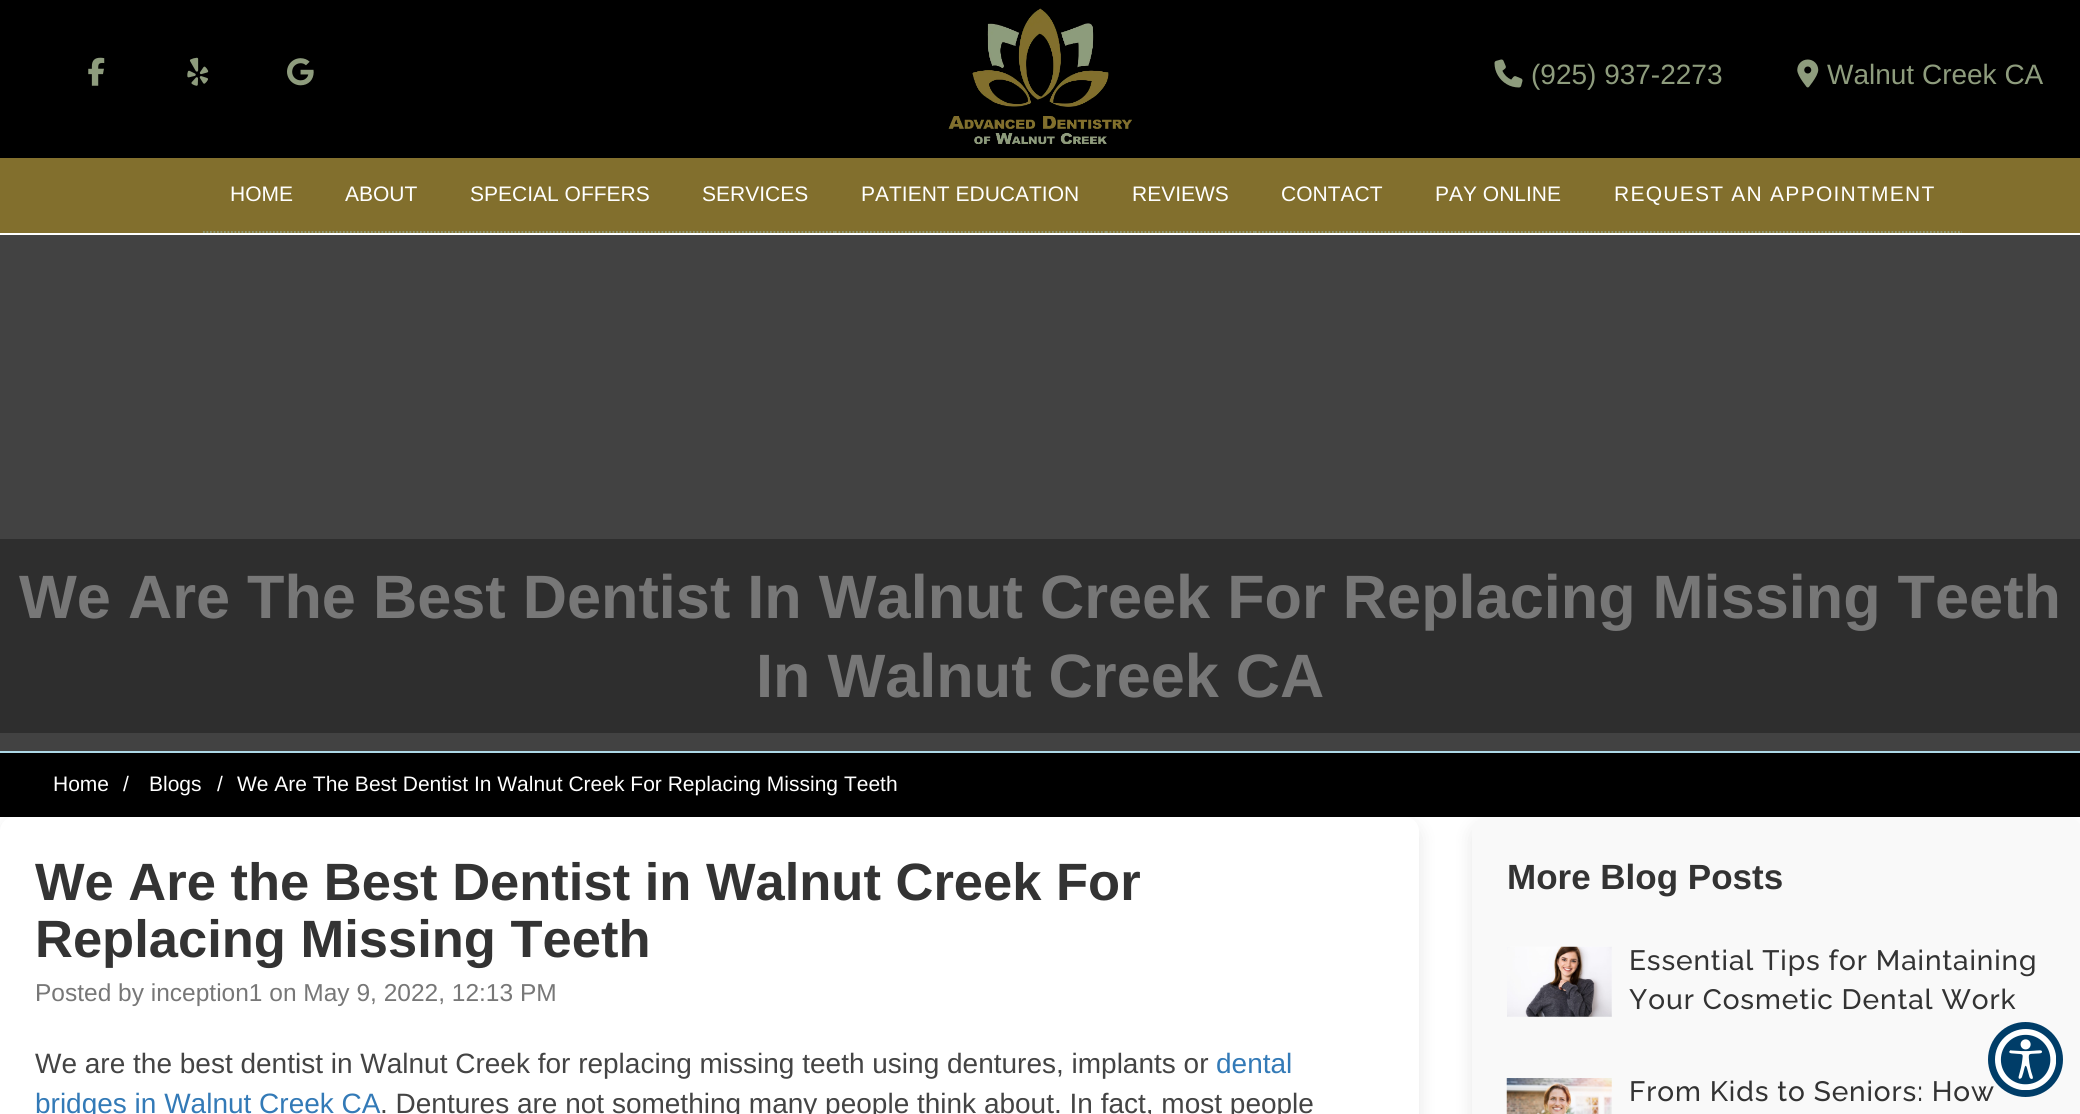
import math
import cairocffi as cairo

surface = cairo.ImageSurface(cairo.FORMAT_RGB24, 2080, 1114)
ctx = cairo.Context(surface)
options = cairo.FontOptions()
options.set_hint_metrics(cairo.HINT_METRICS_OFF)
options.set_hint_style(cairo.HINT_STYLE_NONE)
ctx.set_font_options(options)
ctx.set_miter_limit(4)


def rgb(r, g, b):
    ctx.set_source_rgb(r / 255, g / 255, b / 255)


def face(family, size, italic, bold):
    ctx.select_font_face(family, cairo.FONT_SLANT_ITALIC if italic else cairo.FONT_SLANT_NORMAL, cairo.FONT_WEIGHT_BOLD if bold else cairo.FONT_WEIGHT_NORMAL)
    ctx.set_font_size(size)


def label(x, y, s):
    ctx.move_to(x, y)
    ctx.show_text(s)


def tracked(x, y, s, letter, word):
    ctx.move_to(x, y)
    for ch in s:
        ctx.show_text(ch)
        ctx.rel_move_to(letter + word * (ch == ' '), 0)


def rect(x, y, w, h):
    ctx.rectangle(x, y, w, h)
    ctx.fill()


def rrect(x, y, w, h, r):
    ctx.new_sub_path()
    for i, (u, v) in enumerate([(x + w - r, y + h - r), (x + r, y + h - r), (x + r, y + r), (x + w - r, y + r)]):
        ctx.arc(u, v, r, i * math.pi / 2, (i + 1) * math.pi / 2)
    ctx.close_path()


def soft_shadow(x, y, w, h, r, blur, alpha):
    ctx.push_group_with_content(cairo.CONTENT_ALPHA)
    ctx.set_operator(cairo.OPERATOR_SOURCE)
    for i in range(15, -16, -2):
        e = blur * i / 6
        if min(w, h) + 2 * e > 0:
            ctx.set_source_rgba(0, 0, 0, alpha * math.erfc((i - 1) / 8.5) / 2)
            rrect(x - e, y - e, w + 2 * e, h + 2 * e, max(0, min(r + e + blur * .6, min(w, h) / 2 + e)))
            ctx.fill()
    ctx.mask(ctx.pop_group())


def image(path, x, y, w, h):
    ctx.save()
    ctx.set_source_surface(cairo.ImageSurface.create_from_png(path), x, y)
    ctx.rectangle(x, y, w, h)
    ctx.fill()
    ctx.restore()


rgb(255, 255, 255)
ctx.paint()
rgb(0, 0, 0)
rect(0, 0, 2080, 158)
image('image0.png', 948, 8, 184, 136)
image('image1.png', 1494, 59, 29, 29)
face('Liberation Sans', 28, 0, 0)
rgb(142, 156, 125)
label(1531, 84, '(925) 937-2273')
image('image2.png', 1797, 59, 22, 29)
label(1827, 84, 'Walnut Creek CA')
rgb(130, 111, 45)
rect(0, 158, 2080, 75)
image('image3.png', 88, 57, 17, 29)
image('image4.png', 187, 57, 22, 29)
image('image5.png', 287, 58, 27, 28)
ctx.new_path()
ctx.move_to(203, 232)
ctx.line_to(318.5, 232)
rgb(142, 156, 125)
ctx.set_line_width(1.8)
ctx.set_dash([1.75, 1.75])
ctx.stroke()
face('Liberation Sans', 21, 0, 0)
rgb(255, 255, 255)
label(230, 201, 'HOME')
ctx.new_path()
ctx.move_to(318.5, 232)
ctx.line_to(444.5, 232)
rgb(142, 156, 125)
ctx.stroke()
rgb(255, 255, 255)
label(345, 201, 'ABOUT')
ctx.new_path()
ctx.move_to(444.5, 232)
ctx.line_to(675.5, 232)
rgb(142, 156, 125)
ctx.stroke()
rgb(255, 255, 255)
label(470, 201, 'SPECIAL OFFERS')
ctx.new_path()
ctx.move_to(675.5, 232)
ctx.line_to(835, 232)
rgb(142, 156, 125)
ctx.stroke()
rgb(255, 255, 255)
label(702, 201, 'SERVICES')
ctx.new_path()
ctx.move_to(835, 232)
ctx.line_to(1106, 232)
rgb(142, 156, 125)
ctx.stroke()
rgb(255, 255, 255)
label(861, 201, 'PATIENT EDUCATION')
ctx.new_path()
ctx.move_to(1106, 232)
ctx.line_to(1255, 232)
rgb(142, 156, 125)
ctx.stroke()
rgb(255, 255, 255)
label(1132, 201, 'REVIEWS')
ctx.new_path()
ctx.move_to(1255, 232)
ctx.line_to(1409, 232)
rgb(142, 156, 125)
ctx.stroke()
rgb(255, 255, 255)
label(1281, 201, 'CONTACT')
ctx.new_path()
ctx.move_to(1409, 232)
ctx.line_to(1587, 232)
rgb(142, 156, 125)
ctx.stroke()
rgb(255, 255, 255)
label(1435, 201, 'PAY ONLINE')
ctx.new_path()
ctx.move_to(1587, 232)
ctx.line_to(1962, 232)
rgb(142, 156, 125)
ctx.stroke()
rgb(255, 255, 255)
tracked(1614, 201, 'REQUEST AN APPOINTMENT', 1.25, 0)
rgb(66, 66, 66)
rect(0, 235, 2080, 516)
rgb(173, 216, 230)
rect(0, 751, 2080, 2)
rgb(46, 46, 46)
rect(0, 539, 2080, 194)
face('Liberation Sans', 61.25, 0, 1)
rgb(119, 119, 119)
label(19, 618, 'We Are The Best Dentist In Walnut Creek For Replacing Missing Teeth')
label(756, 697, 'In Walnut Creek CA')
rgb(0, 0, 0)
soft_shadow(0, 824, 1419, 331, 14, 9, 0.1)
soft_shadow(1472, 824, 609, 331, 14, 9, 0.1)
rgb(0, 0, 0)
rect(0, 753, 2080, 64)
face('Liberation Sans', 21, 0, 0)
rgb(255, 255, 255)
label(53, 791, 'Home')
label(123, 791, '/')
label(149, 791, 'Blogs')
label(217, 791, '/')
label(237, 791, 'We Are The Best Dentist In Walnut Creek For Replacing Missing Teeth')
rrect(0, 817, 1419, 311, 14)
ctx.fill()
face('Liberation Sans', 52.5, 0, 1)
rgb(51, 51, 51)
label(35, 900, 'We Are the Best Dentist in Walnut Creek For')
label(35, 957, 'Replacing Missing Teeth')
face('Liberation Sans', 24.5, 0, 0)
rgb(119, 119, 119)
label(35, 1001, 'Posted by inception1 on May 9, 2022, 12:13 PM')
face('Liberation Sans', 28, 0, 0)
rgb(68, 68, 68)
label(35, 1073, 'We are the best dentist in Walnut Creek for replacing missing teeth using dentures, implants or')
rgb(51, 122, 183)
label(1216, 1073, 'dental')
label(35, 1113, 'bridges in Walnut Creek CA')
rgb(68, 68, 68)
label(380, 1113, '. Dentures are not something many people think about. In fact, most people')
rgb(249, 249, 249)
rrect(1472, 817, 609, 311, 14)
ctx.fill()
face('Liberation Sans', 35, 0, 1)
rgb(51, 51, 51)
label(1507, 889, 'More Blog Posts')
image('image6.png', 1507, 946, 105, 71)
face('Raleway Medium', 28, 0, 0)
tracked(1629, 970, 'Essential Tips for Maintaining', 0.9, 0)
tracked(1629, 1009, 'Your Cosmetic Dental Work', 0.9, 0)
image('image7.png', 1506, 1078, 106, 36)
tracked(1629, 1101, 'From Kids to Seniors: How', 0.9, 0)
rgb(0, 61, 104)
ctx.new_path()
ctx.arc(2025.5, 1059.5, 37.5, 0, 2 * math.pi)
ctx.fill()
image('image8.png', 1995, 1029, 61, 61)
surface.write_to_png('render.png')
